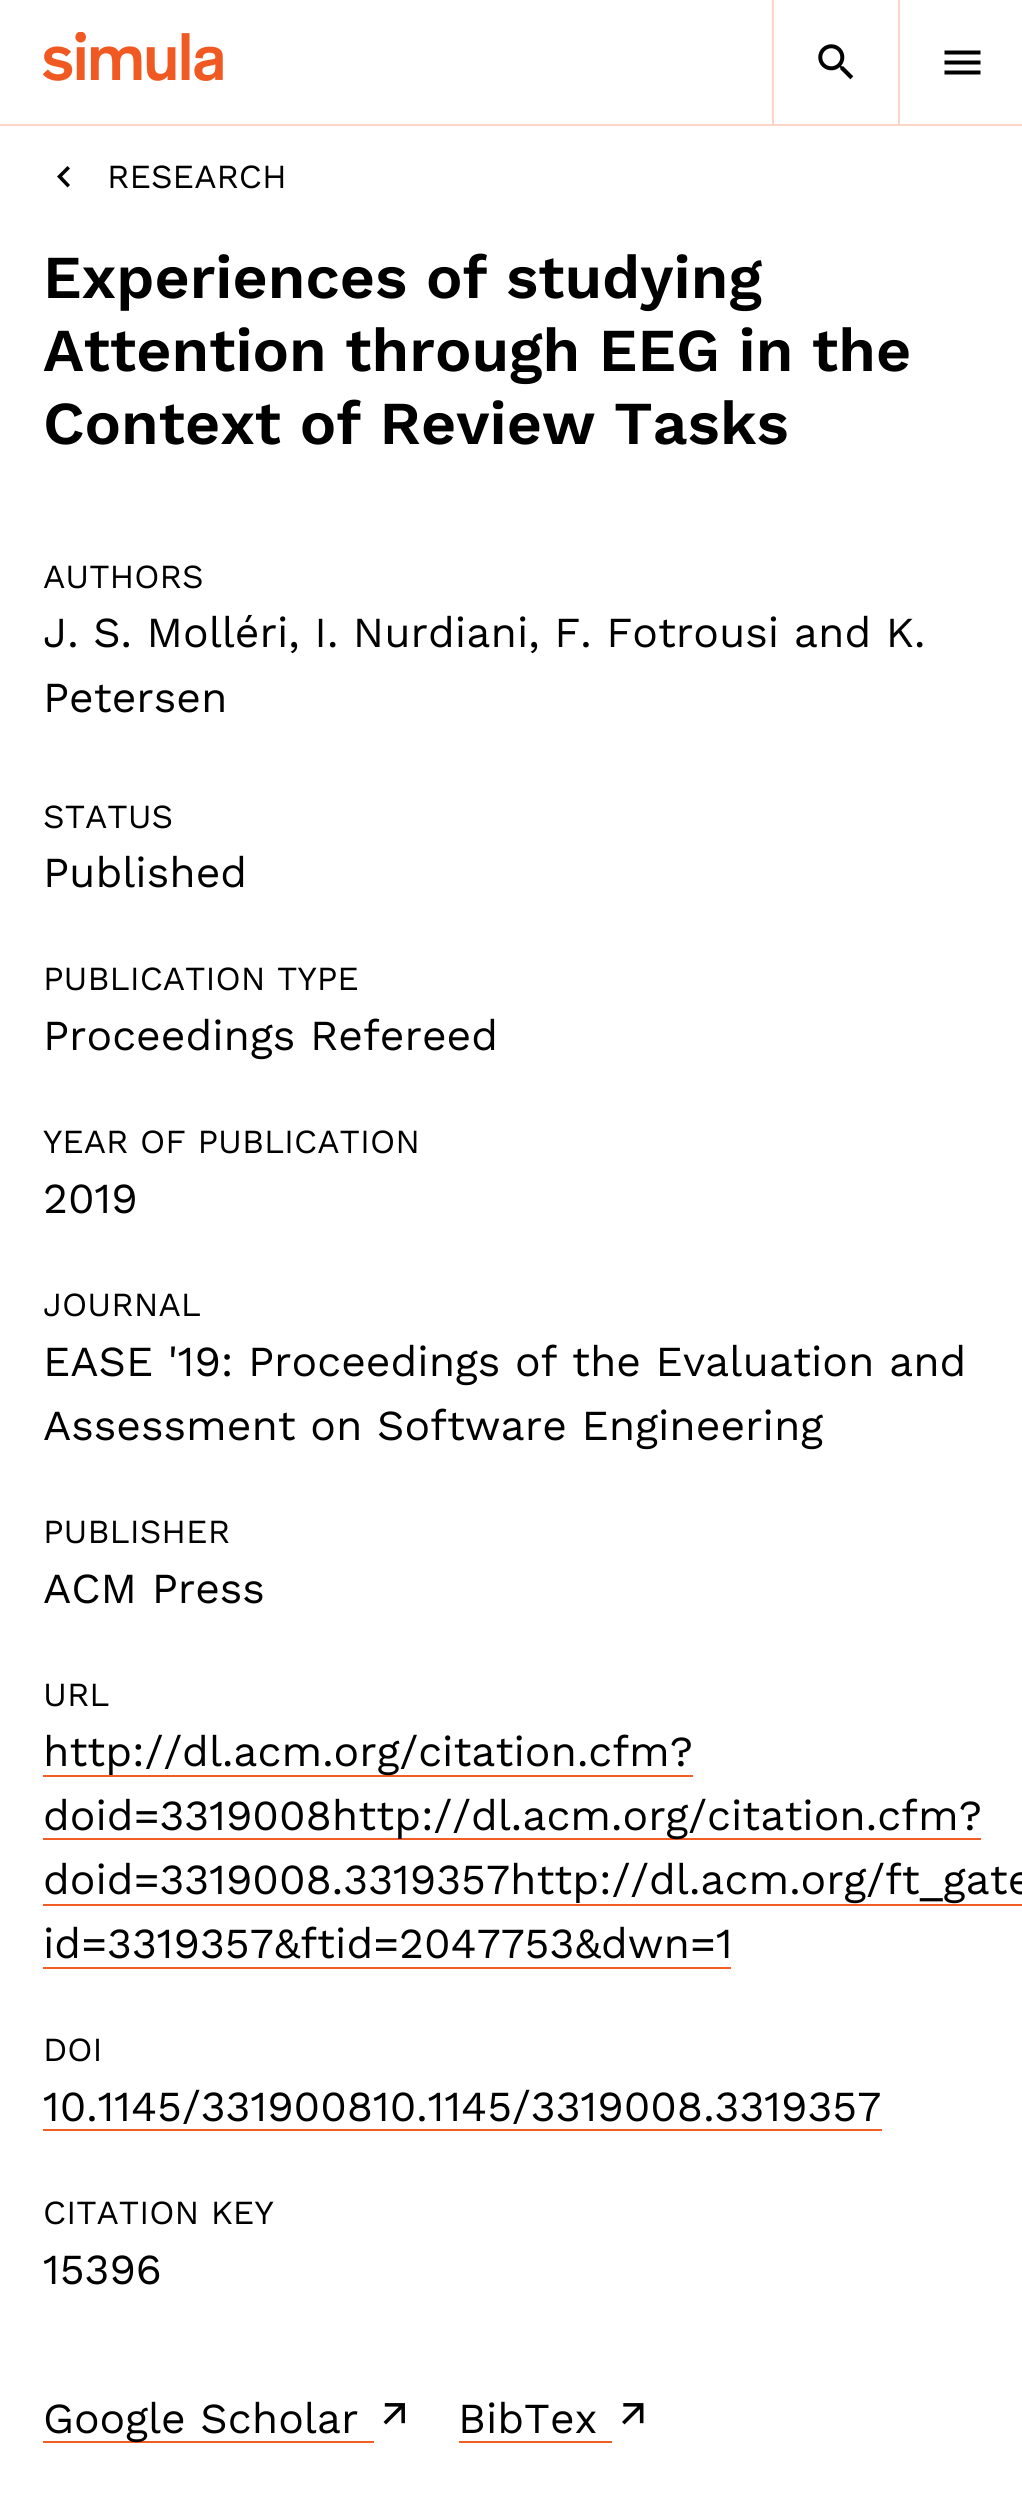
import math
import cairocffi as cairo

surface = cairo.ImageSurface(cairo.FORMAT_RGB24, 1022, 2493)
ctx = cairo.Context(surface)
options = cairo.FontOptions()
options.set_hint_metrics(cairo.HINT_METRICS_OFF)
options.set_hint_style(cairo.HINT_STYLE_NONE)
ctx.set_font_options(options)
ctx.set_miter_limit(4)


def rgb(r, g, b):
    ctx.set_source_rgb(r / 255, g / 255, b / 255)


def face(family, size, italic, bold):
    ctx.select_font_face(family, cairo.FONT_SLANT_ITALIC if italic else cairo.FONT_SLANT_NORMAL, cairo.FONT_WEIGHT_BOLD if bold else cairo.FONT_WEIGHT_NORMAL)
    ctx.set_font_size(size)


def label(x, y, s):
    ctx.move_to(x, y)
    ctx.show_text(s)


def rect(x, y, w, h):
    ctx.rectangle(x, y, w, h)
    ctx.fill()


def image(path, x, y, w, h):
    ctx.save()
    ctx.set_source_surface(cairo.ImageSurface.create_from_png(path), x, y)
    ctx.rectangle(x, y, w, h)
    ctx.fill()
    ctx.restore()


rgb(255, 255, 255)
ctx.paint()
rgb(251, 213, 200)
rect(0, 124, 1022, 2)
image('image0.png', 43, 32, 180, 49)
rect(898, 0, 2, 124)
rect(772, 0, 2, 124)
image('image1.png', 818, 44, 36, 36)
rgb(0, 0, 0)
ctx.new_path()
ctx.move_to(944.5, 74.5)
ctx.line_to(980.5, 74.5)
ctx.line_to(980.5, 70.5)
ctx.line_to(944.5, 70.5)
ctx.close_path()
ctx.move_to(944.5, 64.5)
ctx.line_to(980.5, 64.5)
ctx.line_to(980.5, 60.5)
ctx.line_to(944.5, 60.5)
ctx.close_path()
ctx.move_to(944.5, 50.5)
ctx.line_to(944.5, 54.5)
ctx.line_to(980.5, 54.5)
ctx.line_to(980.5, 50.5)
ctx.close_path()
ctx.fill()
ctx.new_path()
ctx.move_to(70, 168.5)
ctx.line_to(67.5, 166)
ctx.line_to(57, 176.5)
ctx.line_to(67.5, 187.5)
ctx.line_to(70, 185)
ctx.line_to(62, 176.5)
ctx.close_path()
ctx.fill()
face('Work Sans', 33.75, 0, 0)
label(107, 188, 'RESEARCH')
face('Work Sans SemiBold', 60.9, 0, 0)
label(43, 298, 'Experiences of studying')
label(43, 371, 'Attention through EEG in the')
label(43, 444, 'Context of Review Tasks')
face('Work Sans', 33.75, 0, 0)
label(43, 588, 'AUTHORS')
face('Work Sans', 42.75, 0, 0)
label(43, 647, 'J. S. Molléri, I. Nurdiani, F. Fotrousi and K.')
label(43, 712, 'Petersen')
face('Work Sans', 33.75, 0, 0)
label(43, 828, 'STATUS')
face('Work Sans', 42.75, 0, 0)
label(43, 887, 'Published')
face('Work Sans', 33.75, 0, 0)
label(43, 990, 'PUBLICATION TYPE')
face('Work Sans', 42.75, 0, 0)
label(43, 1050, 'Proceedings Refereed')
face('Work Sans', 33.75, 0, 0)
label(43, 1153, 'YEAR OF PUBLICATION')
face('Work Sans', 42.75, 0, 0)
label(43, 1213, '2019')
face('Work Sans', 33.75, 0, 0)
label(43, 1316, 'JOURNAL')
face('Work Sans', 42.75, 0, 0)
label(43, 1376, 'EASE \'19: Proceedings of the Evaluation and')
label(43, 1440, 'Assessment on Software Engineering')
face('Work Sans', 33.75, 0, 0)
label(43, 1543, 'PUBLISHER')
face('Work Sans', 42.75, 0, 0)
label(43, 1603, 'ACM Press')
face('Work Sans', 33.75, 0, 0)
label(43, 1706, 'URL')
rgb(241, 93, 35)
rect(43, 1775, 650, 2)
face('Work Sans', 42.75, 0, 0)
rgb(0, 0, 0)
label(43, 1766, 'http://dl.acm.org/citation.cfm?')
rgb(241, 93, 35)
rect(43, 1838, 938, 2)
rgb(0, 0, 0)
label(43, 1830, 'doid=3319008http://dl.acm.org/citation.cfm?')
label(43, 1894, 'doid=3319008.3319357http://dl.acm.org/ft_gate')
rgb(241, 93, 35)
rect(43, 1904, 979, 2)
rgb(0, 0, 0)
label(43, 1958, 'id=3319357&ftid=2047753&dwn=1')
rgb(241, 93, 35)
rect(43, 1967, 688, 2)
face('Work Sans', 33.75, 0, 0)
rgb(0, 0, 0)
label(43, 2061, 'DOI')
face('Work Sans', 42.75, 0, 0)
label(43, 2121, '10.1145/331900810.1145/3319008.3319357')
rgb(241, 93, 35)
rect(43, 2129, 839, 2)
face('Work Sans', 33.75, 0, 0)
rgb(0, 0, 0)
label(43, 2224, 'CITATION KEY')
face('Work Sans', 42.75, 0, 0)
label(43, 2284, '15396')
rgb(241, 93, 35)
rect(43, 2441, 331, 2)
rgb(0, 0, 0)
label(43, 2433, 'Google Scholar')
image('image2.png', 383, 2403, 22, 22)
label(458, 2433, 'BibTex')
rgb(241, 93, 35)
rect(459, 2441, 153, 2)
image('image3.png', 622, 2403, 22, 22)
surface.write_to_png('render.png')
